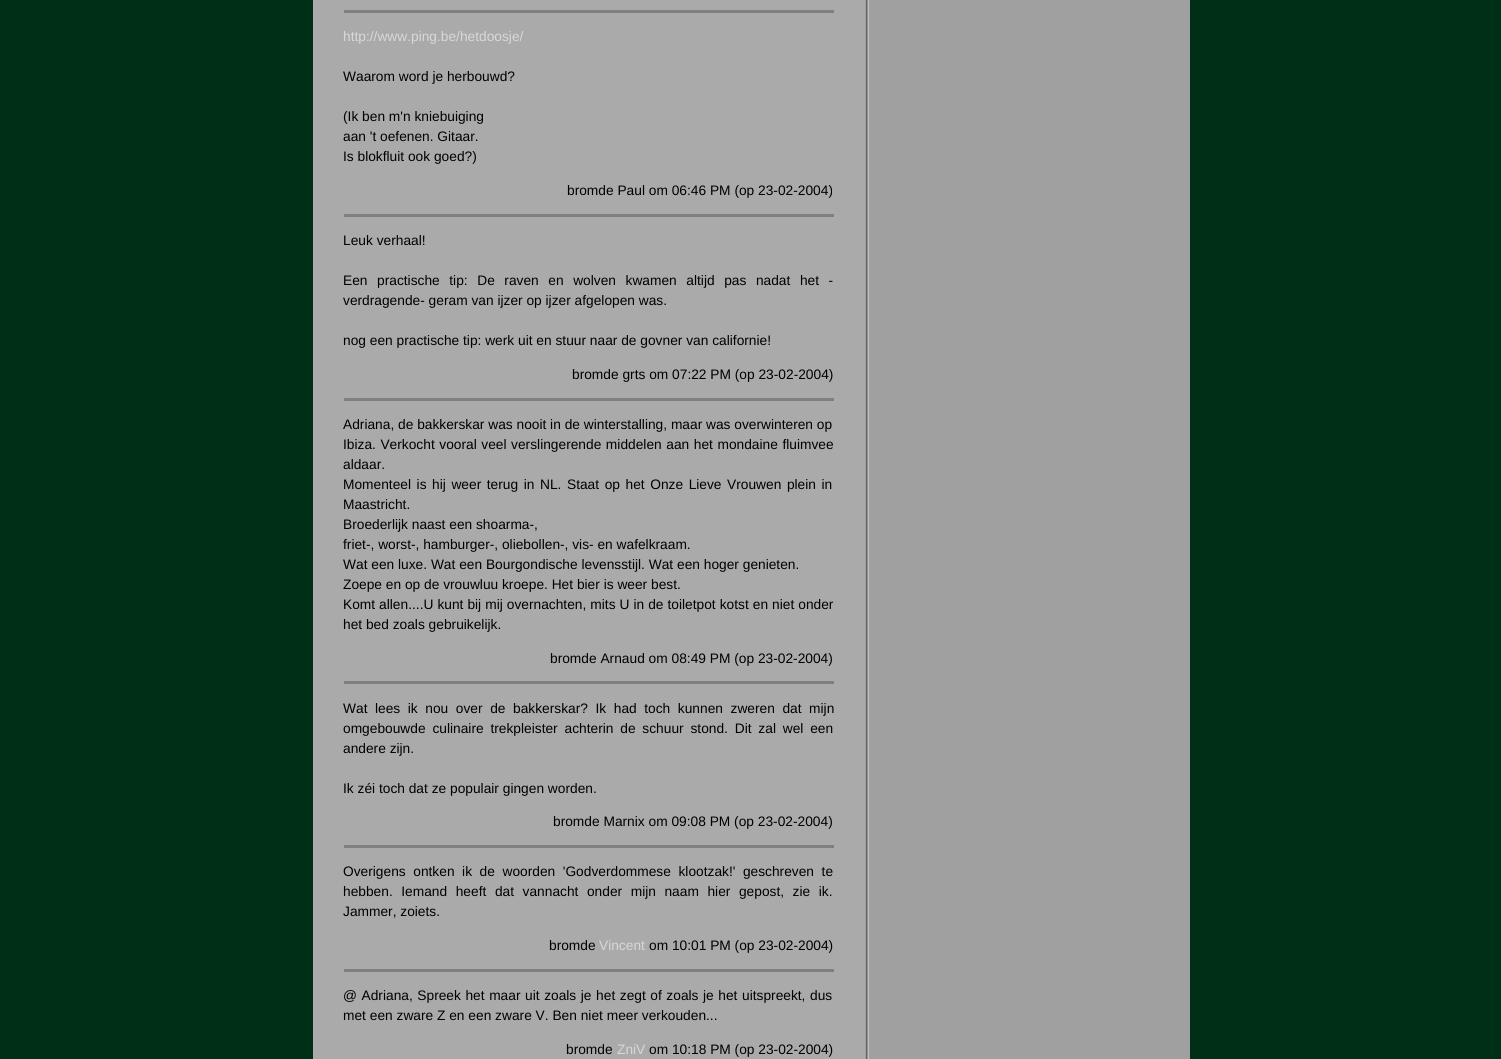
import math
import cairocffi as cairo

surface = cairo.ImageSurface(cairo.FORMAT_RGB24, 1501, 1059)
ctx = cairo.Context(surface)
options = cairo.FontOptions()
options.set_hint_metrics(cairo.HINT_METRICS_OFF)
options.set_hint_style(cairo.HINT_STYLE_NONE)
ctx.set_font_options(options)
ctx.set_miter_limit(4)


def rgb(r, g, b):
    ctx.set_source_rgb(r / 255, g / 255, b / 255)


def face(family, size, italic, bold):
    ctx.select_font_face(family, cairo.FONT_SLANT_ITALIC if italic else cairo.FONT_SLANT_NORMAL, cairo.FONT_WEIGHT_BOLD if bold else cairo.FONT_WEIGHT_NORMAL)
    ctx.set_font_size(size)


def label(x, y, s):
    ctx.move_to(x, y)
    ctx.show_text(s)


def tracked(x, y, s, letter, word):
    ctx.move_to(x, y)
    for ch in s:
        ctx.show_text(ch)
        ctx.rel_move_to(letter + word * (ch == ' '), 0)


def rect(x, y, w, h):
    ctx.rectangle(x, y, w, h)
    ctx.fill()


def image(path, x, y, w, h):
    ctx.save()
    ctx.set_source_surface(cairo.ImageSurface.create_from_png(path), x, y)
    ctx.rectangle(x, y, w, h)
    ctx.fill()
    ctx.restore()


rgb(0, 47, 23)
ctx.paint()
rgb(170, 170, 170)
rect(313, 0, 552, 1059)
rgb(128, 128, 128)
rect(344, 10, 490, 3)
face('Liberation Sans', 13.75, 0, 0)
rgb(216, 216, 216)
label(343, 41, 'http://www.ping.be/hetdoosje/')
rgb(0, 0, 0)
label(343, 81, 'Waarom word je herbouwd?')
label(343, 121, '(Ik ben m\'n kniebuiging')
label(343, 141, 'aan \'t oefenen. Gitaar.')
label(343, 161, 'Is blokfluit ook goed?)')
label(567, 195, 'bromde Paul om 06:46 PM (op 23-02-2004)')
rgb(128, 128, 128)
rect(344, 214, 490, 3)
rgb(0, 0, 0)
label(343, 245, 'Leuk verhaal!')
tracked(343, 285, 'Een practische tip: De raven en wolven kwamen altijd pas nadat het -', 0, 5.75)
label(343, 305, 'verdragende- geram van ijzer op ijzer afgelopen was.')
label(343, 345, 'nog een practische tip: werk uit en stuur naar de govner van californie!')
label(572, 379, 'bromde grts om 07:22 PM (op 23-02-2004)')
rgb(128, 128, 128)
rect(344, 398, 490, 3)
rgb(0, 0, 0)
label(343, 429, 'Adriana, de bakkerskar was nooit in de winterstalling, maar was overwinteren op')
tracked(343, 449, 'Ibiza. Verkocht vooral veel verslingerende middelen aan het mondaine fluimvee', 0, 0.75)
label(343, 469, 'aldaar.')
tracked(343, 489, 'Momenteel is hij weer terug in NL. Staat op het Onze Lieve Vrouwen plein in', 0, 1.75)
label(343, 509, 'Maastricht.')
label(343, 529, 'Broederlijk naast een shoarma-,')
label(343, 549, 'friet-, worst-, hamburger-, oliebollen-, vis- en wafelkraam.')
label(343, 569, 'Wat een luxe. Wat een Bourgondische levensstijl. Wat een hoger genieten.')
label(343, 589, 'Zoepe en op de vrouwluu kroepe. Het bier is weer best.')
tracked(343, 609, 'Komt allen....U kunt bij mij overnachten, mits U in de toiletpot kotst en niet onder', 0, 0.2)
label(343, 629, 'het bed zoals gebruikelijk.')
label(550, 663, 'bromde Arnaud om 08:49 PM (op 23-02-2004)')
rgb(128, 128, 128)
rect(344, 681, 490, 3)
rgb(0, 0, 0)
tracked(343, 713, 'Wat lees ik nou over de bakkerskar? Ik had toch kunnen zweren dat mijn', 0, 3.75)
tracked(343, 733, 'omgebouwde culinaire trekpleister achterin de schuur stond. Dit zal wel een', 0, 3)
label(343, 753, 'andere zijn.')
label(343, 793, 'Ik zéi toch dat ze populair gingen worden.')
label(553, 826, 'bromde Marnix om 09:08 PM (op 23-02-2004)')
rgb(128, 128, 128)
rect(344, 845, 490, 3)
rgb(0, 0, 0)
tracked(343, 876, 'Overigens ontken ik de woorden \'Godverdommese klootzak!\' geschreven te', 0, 3.75)
tracked(343, 896, 'hebben. Iemand heeft dat vannacht onder mijn naam hier gepost, zie ik.', 0, 4.75)
label(343, 916, 'Jammer, zoiets.')
label(549, 950, 'bromde')
rgb(216, 216, 216)
label(599, 950, 'Vincent')
rgb(0, 0, 0)
label(649, 950, 'om 10:01 PM (op 23-02-2004)')
rgb(128, 128, 128)
rect(344, 969, 490, 3)
rgb(0, 0, 0)
tracked(343, 1000, '@ Adriana, Spreek het maar uit zoals je het zegt of zoals je het uitspreekt, dus', 0, 0.75)
label(343, 1020, 'met een zware Z en een zware V. Ben niet meer verkouden...')
label(566, 1054, 'bromde')
rgb(216, 216, 216)
label(617, 1054, 'ZniV')
rgb(0, 0, 0)
label(649, 1054, 'om 10:18 PM (op 23-02-2004)')
image('image0.png', 865, 0, 325, 1059)
surface.write_to_png('render.png')
